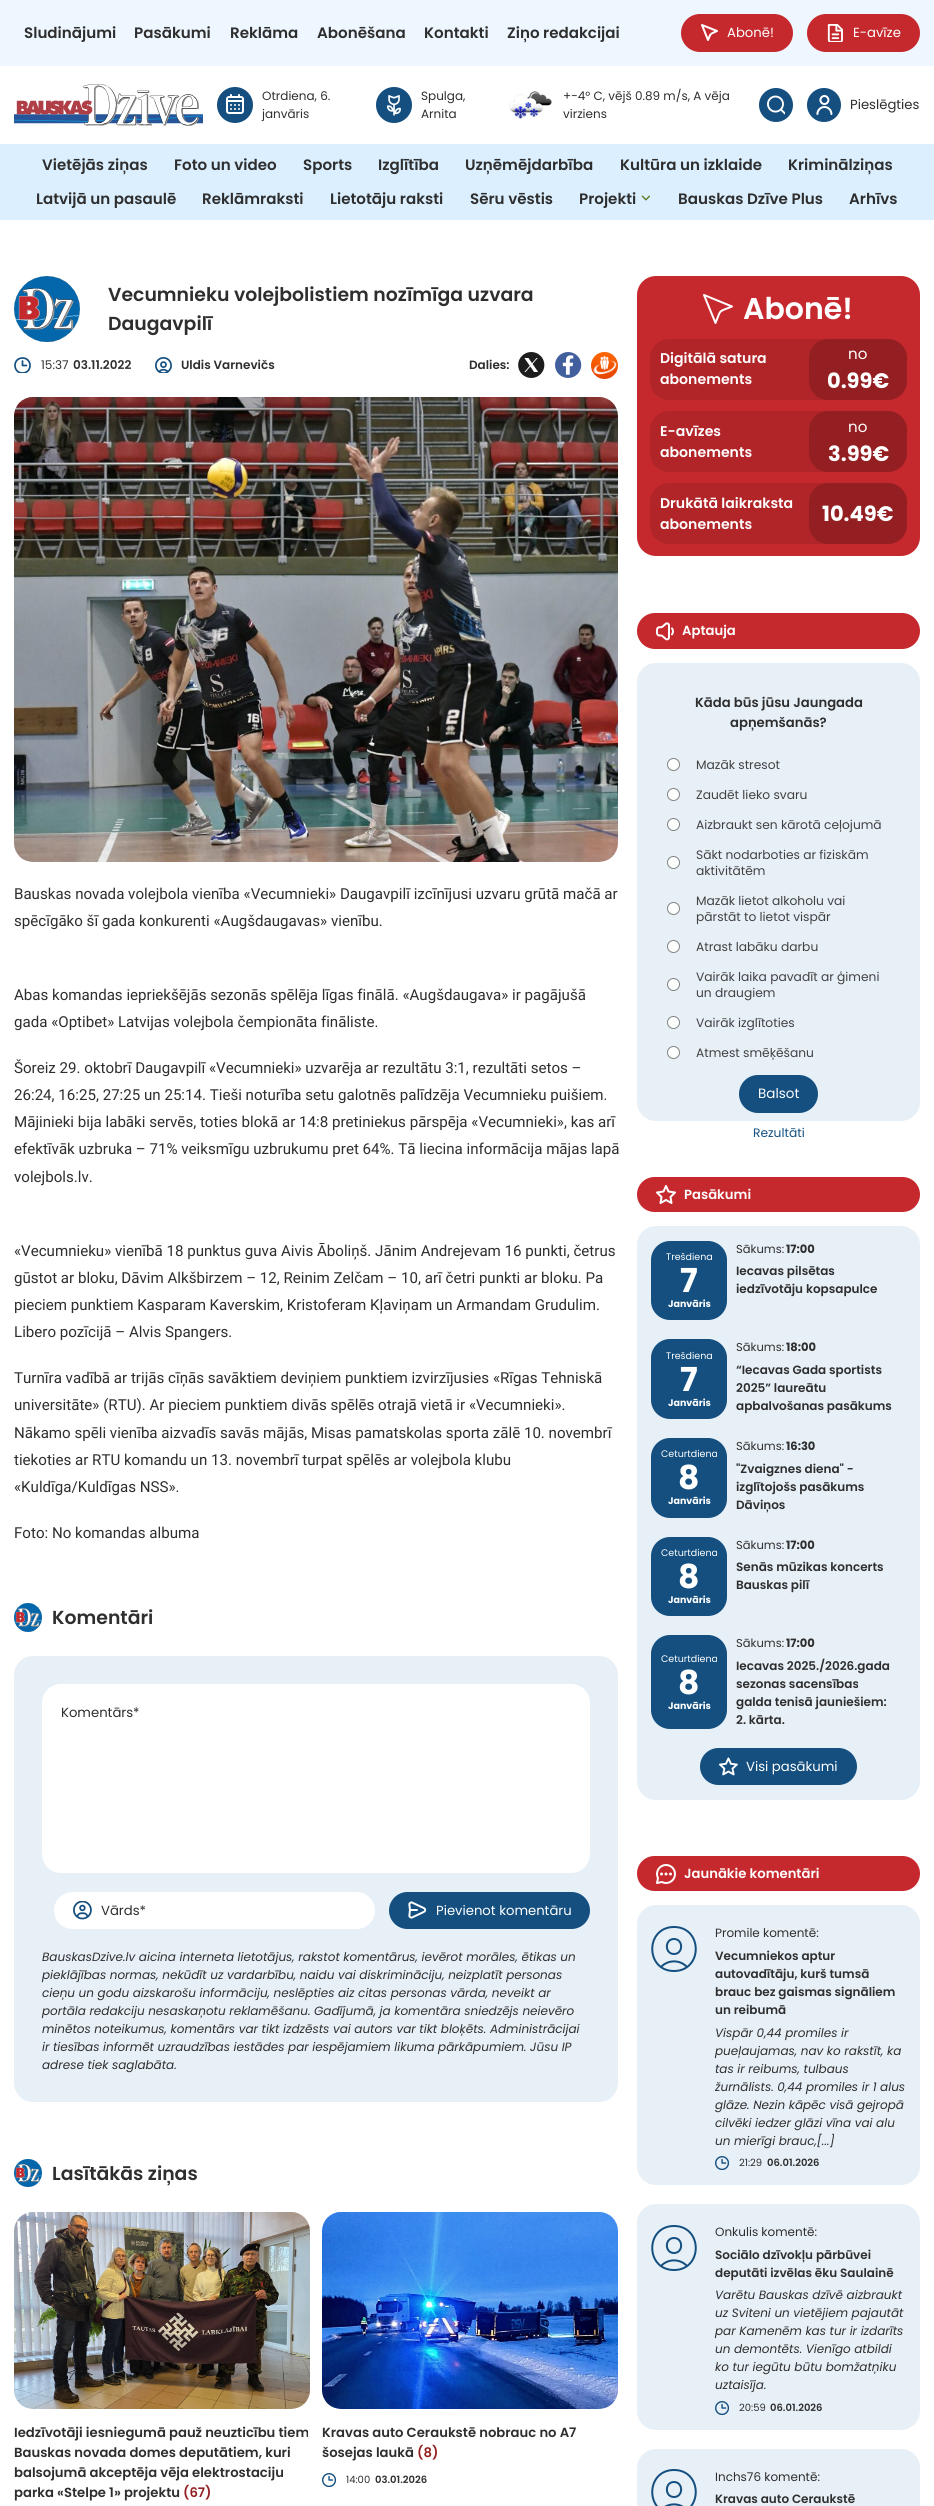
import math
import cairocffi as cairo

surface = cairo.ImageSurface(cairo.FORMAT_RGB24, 934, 2506)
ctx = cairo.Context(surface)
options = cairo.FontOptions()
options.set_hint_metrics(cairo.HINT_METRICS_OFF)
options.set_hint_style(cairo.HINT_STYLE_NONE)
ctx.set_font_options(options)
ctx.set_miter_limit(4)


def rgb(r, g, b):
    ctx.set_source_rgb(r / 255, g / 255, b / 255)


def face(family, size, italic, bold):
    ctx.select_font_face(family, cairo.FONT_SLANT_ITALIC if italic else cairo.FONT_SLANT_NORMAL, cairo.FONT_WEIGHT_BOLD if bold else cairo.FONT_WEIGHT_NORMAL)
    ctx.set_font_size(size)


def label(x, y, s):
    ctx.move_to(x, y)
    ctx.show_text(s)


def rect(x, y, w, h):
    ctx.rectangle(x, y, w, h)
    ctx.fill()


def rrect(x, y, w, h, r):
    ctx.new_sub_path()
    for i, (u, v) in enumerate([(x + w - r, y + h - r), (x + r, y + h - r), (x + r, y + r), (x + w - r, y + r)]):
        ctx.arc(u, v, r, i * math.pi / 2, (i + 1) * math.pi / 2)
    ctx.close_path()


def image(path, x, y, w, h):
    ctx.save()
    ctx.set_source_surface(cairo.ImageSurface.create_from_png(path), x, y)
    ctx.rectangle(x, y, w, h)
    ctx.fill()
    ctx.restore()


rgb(255, 255, 255)
ctx.paint()
rgb(238, 247, 255)
rect(0, 0, 934, 66)
face('Poppins SemiBold', 15.1, 0, 0)
rgb(46, 46, 46)
label(24, 38, 'Sludinājumi')
label(134, 38, 'Pasākumi')
label(230, 38, 'Reklāma')
label(317, 38, 'Abonēšana')
label(424, 38, 'Kontakti')
label(507, 38, 'Ziņo redakcijai')
rgb(197, 41, 45)
rrect(681, 14, 112, 38, 19)
ctx.fill()
ctx.new_path()
ctx.move_to(708, 40)
ctx.line_to(702, 25)
ctx.line_to(717, 31)
ctx.curve_to(709.5, 34.5, 711, 33, 708, 40)
ctx.close_path()
rgb(255, 255, 255)
ctx.set_line_cap(cairo.LINE_CAP_ROUND)
ctx.set_line_join(cairo.LINE_JOIN_ROUND)
ctx.stroke()
face('Poppins', 13.2, 0, 0)
label(727, 37, 'Abonē!')
rgb(197, 41, 45)
rrect(807, 14, 113, 38, 19)
ctx.fill()
image('image0.png', 827, 24, 16, 18)
rgb(255, 255, 255)
label(853, 37, 'E-avīze')
image('image1.png', 14, 84, 189, 42)
image('image2.png', 217, 87, 36, 36)
face('Poppins', 12, 0, 0)
rgb(46, 46, 46)
label(262, 100, 'Otrdiena, 6.')
label(262, 118, 'janvāris')
image('image3.png', 376, 87, 36, 36)
label(421, 100, 'Spulga,')
label(421, 118, 'Arnita')
image('image4.png', 509, 91, 43, 28)
label(563, 100, '+-4° C, vējš 0.89 m/s, A vēja')
label(563, 118, 'virziens')
rgb(20, 79, 128)
ctx.new_path()
ctx.arc(776, 105, 17, 0, 2 * math.pi)
ctx.fill()
image('image5.png', 767, 95, 18, 20)
ctx.arc(824, 105, 17, 0, 2 * math.pi)
ctx.fill()
image('image6.png', 816, 95, 17, 20)
face('Poppins', 13.2, 0, 0)
rgb(46, 46, 46)
label(850, 109, 'Pieslēgties')
rgb(219, 239, 255)
rect(0, 144, 934, 76)
face('Poppins SemiBold', 15.1, 0, 0)
rgb(46, 46, 46)
label(42, 170, 'Vietējās ziņas')
label(174, 170, 'Foto un video')
label(303, 170, 'Sports')
label(378, 170, 'Izglītība')
label(465, 170, 'Uzņēmējdarbība')
label(620, 170, 'Kultūra un izklaide')
label(788, 170, 'Kriminālziņas')
label(36, 204, 'Latvijā un pasaulē')
label(202, 204, 'Reklāmraksti')
label(330, 204, 'Lietotāju raksti')
label(470, 204, 'Sēru vēstis')
label(579, 204, 'Projekti')
image('image7.png', 641, 195, 9, 6)
label(678, 204, 'Bauskas Dzīve Plus')
label(849, 204, 'Arhīvs')
image('image8.png', 14, 276, 66, 66)
face('Poppins SemiBold', 18.85, 0, 0)
label(108, 301, 'Vecumnieku volejbolistiem nozīmīga uzvara')
label(108, 330, 'Daugavpilī')
ctx.save()
ctx.rectangle(14, 357, 17, 16)
ctx.clip()
ctx.new_path()
ctx.move_to(22.5, 361)
ctx.line_to(22.5, 365.5)
ctx.line_to(26.5, 365.5)
ctx.move_to(22.5, 373)
ctx.curve_to(12.5, 373, 12.5, 358, 22.5, 358)
ctx.curve_to(32.5, 358, 32.5, 373, 22.5, 373)
ctx.close_path()
rgb(20, 79, 128)
ctx.set_line_width(1.7)
ctx.stroke()
ctx.restore()
face('Poppins', 12, 0, 0)
label(41, 369, '15:37')
face('Poppins SemiBold', 12, 0, 0)
label(73, 369, '03.11.2022')
image('image9.png', 155, 357, 17, 16)
label(181, 369, 'Uldis Varnevičs')
label(469, 369, 'Dalies:')
image('image10.png', 518, 352, 27, 26)
image('image11.png', 555, 352, 27, 26)
image('image12.png', 591, 352, 27, 27)
image('image13.png', 14, 397, 604, 465)
face('Roboto', 15.1, 0, 0)
label(14, 899, 'Bauskas novada volejbola vienība «Vecumnieki» Daugavpilī izcīnījusi uzvaru grūtā mačā ar')
label(14, 926, 'spēcīgāko šī gada konkurenti «Augšdaugavas» vienību.')
label(14, 1000, 'Abas komandas iepriekšējās sezonās spēlēja līgas finālā. «Augšdaugava» ir pagājušā')
label(14, 1027, 'gada «Optibet» Latvijas volejbola čempionāta fināliste.')
label(14, 1073, 'Šoreiz 29. oktobrī Daugavpilī «Vecumnieki» uzvarēja ar rezultātu 3:1, rezultāti setos –')
label(14, 1100, '26:24, 16:25, 27:25 un 25:14. Tieši noturība setu galotnēs palīdzēja Vecumnieku puišiem.')
label(14, 1127, 'Mājinieki bija labāki servēs, toties blokā ar 14:8 pretiniekus pārspēja «Vecumnieki», kas arī')
label(14, 1154, 'efektīvāk uzbruka – 71% veiksmīgu uzbrukumu pret 64%. Tā liecina informācija mājas lapā')
label(14, 1182, 'volejbols.lv.')
label(14, 1256, '«Vecumnieku» vienībā 18 punktus guva Aivis Āboliņš. Jānim Andrejevam 16 punkti, četrus')
label(14, 1283, 'gūstot ar bloku, Dāvim Alkšbirzem – 12, Reinim Zelčam – 10, arī četri punkti ar bloku. Pa')
label(14, 1310, 'pieciem punktiem Kasparam Kaverskim, Kristoferam Kļaviņam un Armandam Grudulim.')
label(14, 1337, 'Libero pozīcijā – Alvis Spangers.')
label(14, 1383, 'Turnīra vadībā ar trijās cīņās savāktiem deviņiem punktiem izvirzījusies «Rīgas Tehniskā')
label(14, 1410, 'universitāte» (RTU). Ar pieciem punktiem divās spēlēs otrajā vietā ir «Vecumnieki».')
label(14, 1438, 'Nākamo spēli vienība aizvadīs savās mājās, Misas pamatskolas sporta zālē 10. novembrī')
label(14, 1465, 'tiekoties ar RTU komandu un 13. novembrī turpat spēlēs ar volejbola klubu')
label(14, 1492, '«Kuldīga/Kuldīgas NSS».')
label(14, 1538, 'Foto: No komandas albuma')
image('image14.png', 14, 1603, 28, 29)
face('Poppins SemiBold', 18.85, 0, 0)
label(52, 1624, 'Komentāri')
rgb(232, 240, 247)
rrect(14, 1656, 604, 446, 19)
ctx.fill()
rgb(255, 255, 255)
rrect(42, 1684, 548, 189, 19)
ctx.fill()
face('Poppins', 13.2, 0, 0)
rgb(46, 46, 46)
label(61, 1717, 'Komentārs*')
rgb(255, 255, 255)
rrect(54, 1892, 321, 37, 18.5)
ctx.fill()
image('image15.png', 73, 1901, 19, 19)
rgb(46, 46, 46)
label(101, 1915, 'Vārds*')
rgb(20, 79, 128)
rrect(389, 1892, 201, 37, 18.5)
ctx.fill()
image('image16.png', 408, 1901, 19, 18)
rgb(255, 255, 255)
label(436, 1915, 'Pievienot komentāru')
face('Poppins', 12, 1, 0)
rgb(46, 46, 46)
label(42, 1961, 'BauskasDzive.lv aicina interneta lietotājus, rakstot komentārus, ievērot morāles, ētikas un')
label(42, 1979, 'pieklājības normas, nekūdīt uz vardarbību, naidu vai diskrimināciju, neizplatīt personas')
label(42, 1997, 'cieņu un godu aizskarošu informāciju, neslēpties aiz citas personas vārda, neveikt ar')
label(42, 2015, 'portāla redakciju nesaskaņotu reklamēšanu. Gadījumā, ja komentāra sniedzējs neievēro')
label(42, 2033, 'minētos noteikumus, komentārs var tikt izdzēsts vai autors var tikt bloķēts. Administrācijai')
label(42, 2051, 'ir tiesības informēt uzraudzības iestādes par iespējamiem likuma pārkāpumiem. Jūsu IP')
label(42, 2069, 'adrese tiek saglabāta.')
image('image17.png', 14, 2159, 28, 28)
face('Poppins SemiBold', 18.85, 0, 0)
label(52, 2180, 'Lasītākās ziņas')
image('image18.png', 14, 2212, 296, 197)
face('Poppins SemiBold', 13.2, 0, 0)
label(14, 2437, 'Iedzīvotāji iesniegumā pauž neuzticību tiem')
label(14, 2457, 'Bauskas novada domes deputātiem, kuri')
label(14, 2477, 'balsojumā akceptēja vēja elektrostaciju')
label(14, 2497, 'parka «Stelpe 1» projektu')
rgb(148, 31, 34)
label(183, 2497, '(67)')
image('image19.png', 322, 2212, 296, 197)
rgb(46, 46, 46)
label(322, 2437, 'Kravas auto Ceraukstē nobrauc no A7')
label(322, 2457, 'šosejas laukā')
rgb(148, 31, 34)
label(417, 2457, '(8)')
image('image20.png', 322, 2473, 14, 14)
face('Poppins', 10, 0, 0)
rgb(46, 46, 46)
label(346, 2483, '14:00')
face('Poppins SemiBold', 10, 0, 0)
label(375, 2483, '03.01.2026')
rgb(197, 41, 45)
rrect(637, 276, 283, 280, 19)
ctx.fill()
ctx.new_path()
ctx.move_to(715.5, 323)
ctx.line_to(704, 295)
ctx.line_to(732, 306.5)
ctx.curve_to(717.5, 312.5, 721.5, 308.5, 715.5, 323)
ctx.close_path()
rgb(255, 255, 255)
ctx.stroke()
face('Poppins SemiBold', 30, 0, 0)
label(743, 319, 'Abonē!')
rgb(177, 37, 41)
rrect(650, 339, 257, 61, 19)
ctx.fill()
face('Poppins SemiBold', 14.1, 0, 0)
rgb(255, 255, 255)
label(660, 363, 'Digitālā satura')
label(660, 384, 'abonements')
rgb(148, 31, 34)
rrect(809, 339, 98, 61, 19)
ctx.fill()
face('Poppins', 15.1, 0, 0)
rgb(255, 255, 255)
label(848, 359, 'no')
face('Poppins', 21, 0, 1)
label(827, 388, '0.99€')
rgb(177, 37, 41)
rrect(650, 411, 257, 61, 19)
ctx.fill()
face('Poppins SemiBold', 14.1, 0, 0)
rgb(255, 255, 255)
label(660, 436, 'E-avīzes')
label(660, 457, 'abonements')
rgb(148, 31, 34)
rrect(809, 411, 98, 61, 19)
ctx.fill()
face('Poppins', 15.1, 0, 0)
rgb(255, 255, 255)
label(848, 432, 'no')
face('Poppins', 21, 0, 1)
label(828, 461, '3.99€')
rgb(177, 37, 41)
rrect(650, 483, 257, 61, 19)
ctx.fill()
face('Poppins SemiBold', 14.1, 0, 0)
rgb(255, 255, 255)
label(660, 508, 'Drukātā laikraksta')
label(660, 529, 'abonements')
rgb(148, 31, 34)
rrect(809, 483, 98, 61, 19)
ctx.fill()
face('Poppins', 21, 0, 1)
rgb(255, 255, 255)
label(822, 521, '10.49€')
rgb(197, 41, 45)
rrect(637, 613, 283, 36, 18)
ctx.fill()
image('image21.png', 656, 622, 18, 19)
face('Poppins SemiBold', 13.2, 0, 0)
rgb(255, 255, 255)
label(682, 635, 'Aptauja')
rgb(232, 240, 247)
rrect(637, 663, 283, 458, 19)
ctx.fill()
rgb(46, 46, 46)
label(695, 707, 'Kāda būs jūsu Jaungada')
label(730, 727, 'apņemšanās?')
rgb(253, 254, 254)
ctx.new_path()
ctx.arc(673.5, 764.5, 6, 0, 2 * math.pi)
ctx.fill_preserve()
rgb(129, 130, 131)
ctx.set_line_width(1)
ctx.set_line_cap(cairo.LINE_CAP_BUTT)
ctx.set_line_join(cairo.LINE_JOIN_MITER)
ctx.stroke()
face('Poppins', 12.25, 0, 0)
rgb(65, 65, 66)
label(696, 769, 'Mazāk stresot')
rgb(253, 254, 254)
ctx.new_path()
ctx.arc(673.5, 794.5, 6, 0, 2 * math.pi)
ctx.fill_preserve()
rgb(129, 130, 131)
ctx.stroke()
rgb(65, 65, 66)
label(696, 799, 'Zaudēt lieko svaru')
rgb(253, 254, 254)
ctx.new_path()
ctx.arc(673.5, 824.5, 6, 0, 2 * math.pi)
ctx.fill_preserve()
rgb(129, 130, 131)
ctx.stroke()
rgb(65, 65, 66)
label(696, 829, 'Aizbraukt sen kārotā ceļojumā')
label(696, 859, 'Sākt nodarboties ar fiziskām')
rgb(253, 254, 254)
ctx.new_path()
ctx.arc(673.5, 862.5, 6, 0, 2 * math.pi)
ctx.fill_preserve()
rgb(129, 130, 131)
ctx.stroke()
rgb(65, 65, 66)
label(696, 875, 'aktivitātēm')
label(696, 905, 'Mazāk lietot alkoholu vai')
rgb(253, 254, 254)
ctx.new_path()
ctx.arc(673.5, 908.5, 6, 0, 2 * math.pi)
ctx.fill_preserve()
rgb(129, 130, 131)
ctx.stroke()
rgb(65, 65, 66)
label(696, 921, 'pārstāt to lietot vispār')
rgb(253, 254, 254)
ctx.new_path()
ctx.arc(673.5, 946.5, 6, 0, 2 * math.pi)
ctx.fill_preserve()
rgb(129, 130, 131)
ctx.stroke()
rgb(65, 65, 66)
label(696, 951, 'Atrast labāku darbu')
rgb(253, 254, 254)
ctx.new_path()
ctx.arc(673.5, 984.5, 6, 0, 2 * math.pi)
ctx.fill_preserve()
rgb(129, 130, 131)
ctx.stroke()
rgb(65, 65, 66)
label(696, 981, 'Vairāk laika pavadīt ar ģimeni')
label(696, 997, 'un draugiem')
rgb(253, 254, 254)
ctx.new_path()
ctx.arc(673.5, 1022.5, 6, 0, 2 * math.pi)
ctx.fill_preserve()
rgb(129, 130, 131)
ctx.stroke()
rgb(65, 65, 66)
label(696, 1027, 'Vairāk izglītoties')
rgb(253, 254, 254)
ctx.new_path()
ctx.arc(673.5, 1052.5, 6, 0, 2 * math.pi)
ctx.fill_preserve()
rgb(129, 130, 131)
ctx.stroke()
rgb(65, 65, 66)
label(696, 1057, 'Atmest smēķēšanu')
rgb(20, 79, 128)
rrect(739, 1075, 79, 38, 19)
ctx.fill()
face('Poppins', 13.5, 0, 0)
rgb(255, 255, 255)
label(758, 1098, 'Balsot')
face('Poppins', 12.25, 0, 0)
rgb(20, 79, 128)
label(753, 1137, 'Rezultāti')
rgb(197, 41, 45)
rrect(637, 1177, 283, 35, 17.5)
ctx.fill()
ctx.new_path()
ctx.move_to(666, 1186)
ctx.line_to(668.5, 1191.5)
ctx.line_to(675, 1192.5)
ctx.line_to(670.5, 1197)
ctx.line_to(671.5, 1203)
ctx.line_to(666, 1200)
ctx.line_to(660.5, 1203)
ctx.line_to(661.5, 1197)
ctx.line_to(657, 1192.5)
ctx.line_to(663.5, 1191.5)
ctx.close_path()
rgb(255, 255, 255)
ctx.set_line_width(2)
ctx.set_line_join(cairo.LINE_JOIN_ROUND)
ctx.stroke()
face('Poppins SemiBold', 13.2, 0, 0)
label(684, 1199, 'Pasākumi')
rgb(232, 240, 247)
rrect(637, 1226, 283, 574, 19)
ctx.fill()
rgb(20, 79, 128)
rrect(651, 1241, 76, 79, 19)
ctx.fill()
face('Poppins', 9.5, 0, 0)
rgb(255, 255, 255)
label(666, 1260, 'Trešdiena')
face('Poppins', 33, 0, 1)
label(680, 1292, '7')
face('Poppins', 9.5, 0, 1)
label(668, 1307, 'Janvāris')
face('Poppins', 11.5, 0, 0)
rgb(46, 46, 46)
label(736, 1253, 'Sākums:')
face('Poppins', 11.5, 0, 1)
label(786, 1253, '17:00')
face('Poppins SemiBold', 12, 0, 0)
label(736, 1275, 'Iecavas pilsētas')
label(736, 1293, 'iedzīvotāju kopsapulce')
rgb(20, 79, 128)
rrect(651, 1339, 76, 80, 19)
ctx.fill()
face('Poppins', 9.5, 0, 0)
rgb(255, 255, 255)
label(666, 1359, 'Trešdiena')
face('Poppins', 33, 0, 1)
label(680, 1391, '7')
face('Poppins', 9.5, 0, 1)
label(668, 1406, 'Janvāris')
face('Poppins', 11.5, 0, 0)
rgb(46, 46, 46)
label(736, 1351, 'Sākums:')
face('Poppins', 11.5, 0, 1)
label(786, 1351, '18:00')
face('Poppins SemiBold', 12, 0, 0)
label(736, 1374, '“Iecavas Gada sportists')
label(736, 1392, '2025” laureātu')
label(736, 1410, 'apbalvošanas pasākums')
rgb(20, 79, 128)
rrect(651, 1438, 76, 80, 19)
ctx.fill()
face('Poppins', 9.5, 0, 0)
rgb(255, 255, 255)
label(661, 1457, 'Ceturtdiena')
face('Poppins', 33, 0, 1)
label(678, 1489, '8')
face('Poppins', 9.5, 0, 1)
label(668, 1504, 'Janvāris')
face('Poppins', 11.5, 0, 0)
rgb(46, 46, 46)
label(736, 1450, 'Sākums:')
face('Poppins', 11.5, 0, 1)
label(786, 1450, '16:30')
face('Poppins SemiBold', 12, 0, 0)
label(736, 1473, '"Zvaigznes diena" -')
label(736, 1491, 'izglītojošs pasākums')
label(736, 1509, 'Dāviņos')
rgb(20, 79, 128)
rrect(651, 1537, 76, 79, 19)
ctx.fill()
face('Poppins', 9.5, 0, 0)
rgb(255, 255, 255)
label(661, 1556, 'Ceturtdiena')
face('Poppins', 33, 0, 1)
label(678, 1588, '8')
face('Poppins', 9.5, 0, 1)
label(668, 1603, 'Janvāris')
face('Poppins', 11.5, 0, 0)
rgb(46, 46, 46)
label(736, 1549, 'Sākums:')
face('Poppins', 11.5, 0, 1)
label(786, 1549, '17:00')
face('Poppins SemiBold', 12, 0, 0)
label(736, 1571, 'Senās mūzikas koncerts')
label(736, 1589, 'Bauskas pilī')
rgb(20, 79, 128)
rrect(651, 1635, 76, 94, 19)
ctx.fill()
face('Poppins', 9.5, 0, 0)
rgb(255, 255, 255)
label(661, 1662, 'Ceturtdiena')
face('Poppins', 33, 0, 1)
label(678, 1694, '8')
face('Poppins', 9.5, 0, 1)
label(668, 1709, 'Janvāris')
face('Poppins', 11.5, 0, 0)
rgb(46, 46, 46)
label(736, 1647, 'Sākums:')
face('Poppins', 11.5, 0, 1)
label(786, 1647, '17:00')
face('Poppins SemiBold', 12, 0, 0)
label(736, 1670, 'Iecavas 2025./2026.gada')
label(736, 1688, 'sezonas sacensības')
label(736, 1706, 'galda tenisā jauniešiem:')
label(736, 1724, '2. kārta.')
rgb(20, 79, 128)
rrect(700, 1748, 157, 37, 18.5)
ctx.fill()
image('image22.png', 719, 1757, 19, 19)
face('Poppins', 13.2, 0, 0)
rgb(255, 255, 255)
label(746, 1771, 'Visi pasākumi')
rgb(197, 41, 45)
rrect(637, 1856, 283, 35, 17.5)
ctx.fill()
image('image23.png', 656, 1864, 20, 20)
face('Poppins SemiBold', 13.2, 0, 0)
rgb(255, 255, 255)
label(684, 1878, 'Jaunākie komentāri')
rgb(232, 240, 247)
rrect(637, 1905, 283, 280, 19)
ctx.fill()
ctx.new_path()
ctx.move_to(687, 1967)
ctx.curve_to(680, 1959.5, 668, 1959.5, 661, 1967)
ctx.move_to(674, 1971)
ctx.curve_to(645, 1971, 645, 1927, 674, 1927)
ctx.curve_to(703, 1927, 703, 1971, 674, 1971)
ctx.close_path()
ctx.move_to(674, 1954)
ctx.curve_to(664.5, 1954, 664.5, 1939, 674, 1939)
ctx.curve_to(683.5, 1939, 683.5, 1954, 674, 1954)
ctx.close_path()
rgb(20, 79, 128)
ctx.set_line_cap(cairo.LINE_CAP_ROUND)
ctx.stroke()
face('Poppins', 12, 0, 0)
rgb(46, 46, 46)
label(715, 1937, 'Promile komentē:')
face('Poppins SemiBold', 12, 0, 0)
label(715, 1960, 'Vecumniekos aptur')
label(715, 1978, 'autovadītāju, kurš tumsā')
label(715, 1996, 'brauc bez gaismas signāliem')
label(715, 2014, 'un reibumā')
face('Poppins', 12, 1, 0)
label(715, 2037, 'Vispār 0,44 promiles ir')
label(715, 2055, 'pueļaujamas, nav ko rakstīt, ka')
label(715, 2073, 'tas ir reibums, tulbaus')
label(715, 2091, 'žurnālists. 0,44 promiles ir 1 alus')
label(715, 2109, 'glāze. Nezin kāpēc visā gejropā')
label(715, 2127, 'cilvēki iedzer glāzi vīna vai alu')
label(715, 2145, 'un mierīgi brauc,[...]')
image('image24.png', 715, 2156, 14, 14)
face('Poppins', 10, 0, 0)
label(739, 2166, '21:29')
face('Poppins SemiBold', 10, 0, 0)
label(767, 2166, '06.01.2026')
rgb(232, 240, 247)
rrect(637, 2204, 283, 226, 19)
ctx.fill()
ctx.new_path()
ctx.move_to(687, 2266)
ctx.curve_to(680, 2258.5, 668, 2258.5, 661, 2266)
ctx.move_to(674, 2270)
ctx.curve_to(645, 2270, 645, 2226, 674, 2226)
ctx.curve_to(703, 2226, 703, 2270, 674, 2270)
ctx.close_path()
ctx.move_to(674, 2253)
ctx.curve_to(664.5, 2253, 664.5, 2238, 674, 2238)
ctx.curve_to(683.5, 2238, 683.5, 2253, 674, 2253)
ctx.close_path()
rgb(20, 79, 128)
ctx.stroke()
face('Poppins', 12, 0, 0)
rgb(46, 46, 46)
label(715, 2236, 'Onkulis komentē:')
face('Poppins SemiBold', 12, 0, 0)
label(715, 2259, 'Sociālo dzīvokļu pārbūvei')
label(715, 2277, 'deputāti izvēlas ēku Saulainē')
face('Poppins', 12, 1, 0)
label(715, 2299, 'Varētu Bauskas dzīvē aizbraukt')
label(715, 2317, 'uz Sviteni un vietējiem pajautāt')
label(715, 2335, 'par Kamenēm kas tur ir izdarīts')
label(715, 2353, 'un demontēts. Vienīgo atbildi')
label(715, 2371, 'ko tur iegūtu būtu bomžatņiku')
label(715, 2389, 'uztaisīja.')
image('image24.png', 715, 2401, 14, 14)
face('Poppins', 10, 0, 0)
label(739, 2411, '20:59')
face('Poppins SemiBold', 10, 0, 0)
label(770, 2411, '06.01.2026')
rgb(232, 240, 247)
rrect(637, 2449, 283, 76, 19)
ctx.fill()
ctx.new_path()
ctx.move_to(687, 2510)
ctx.curve_to(680, 2502.5, 668, 2502.5, 661, 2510)
ctx.move_to(674, 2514)
ctx.curve_to(645, 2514, 645, 2470, 674, 2470)
ctx.curve_to(703, 2470, 703, 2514, 674, 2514)
ctx.close_path()
ctx.move_to(674, 2497)
ctx.curve_to(664.5, 2497, 664.5, 2482, 674, 2482)
ctx.curve_to(683.5, 2482, 683.5, 2497, 674, 2497)
ctx.close_path()
rgb(20, 79, 128)
ctx.stroke()
face('Poppins', 12, 0, 0)
rgb(46, 46, 46)
label(715, 2481, 'Inchs76 komentē:')
face('Poppins SemiBold', 12, 0, 0)
label(715, 2503, 'Kravas auto Ceraukstē')
surface.write_to_png('render.png')
